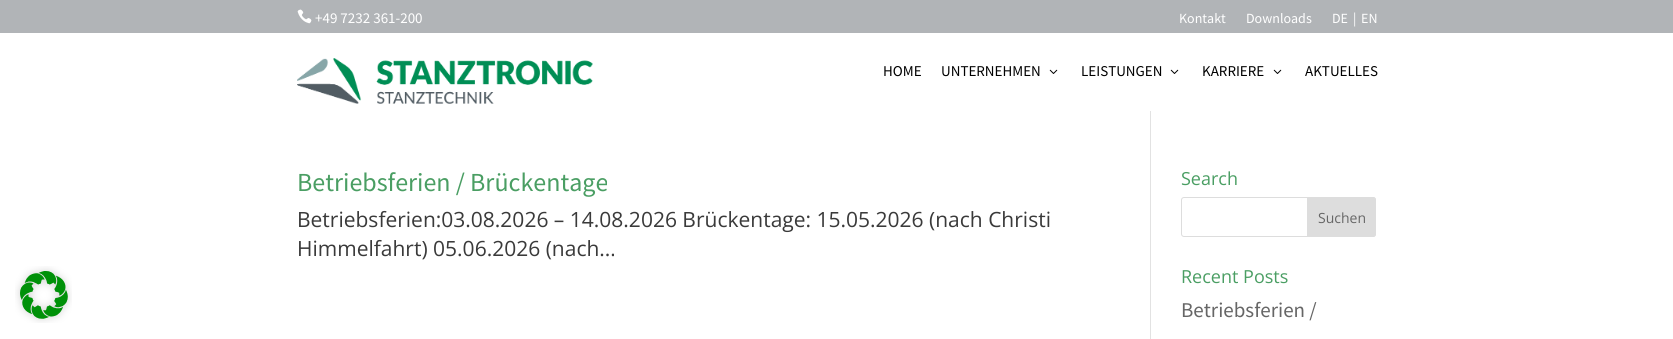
import math
import cairocffi as cairo

surface = cairo.ImageSurface(cairo.FORMAT_RGB24, 1673, 339)
ctx = cairo.Context(surface)
options = cairo.FontOptions()
options.set_hint_metrics(cairo.HINT_METRICS_OFF)
options.set_hint_style(cairo.HINT_STYLE_NONE)
ctx.set_font_options(options)
ctx.set_miter_limit(4)


def rgb(r, g, b):
    ctx.set_source_rgb(r / 255, g / 255, b / 255)


def face(family, size, italic, bold):
    ctx.select_font_face(family, cairo.FONT_SLANT_ITALIC if italic else cairo.FONT_SLANT_NORMAL, cairo.FONT_WEIGHT_BOLD if bold else cairo.FONT_WEIGHT_NORMAL)
    ctx.set_font_size(size)


def label(x, y, s):
    ctx.move_to(x, y)
    ctx.show_text(s)


def rect(x, y, w, h):
    ctx.rectangle(x, y, w, h)
    ctx.fill()


def rrect(x, y, w, h, r):
    ctx.new_sub_path()
    for i, (u, v) in enumerate([(x + w - r, y + h - r), (x + r, y + h - r), (x + r, y + r), (x + w - r, y + r)]):
        ctx.arc(u, v, r, i * math.pi / 2, (i + 1) * math.pi / 2)
    ctx.close_path()


def image(path, x, y, w, h):
    ctx.save()
    ctx.set_source_surface(cairo.ImageSurface.create_from_png(path), x, y)
    ctx.rectangle(x, y, w, h)
    ctx.fill()
    ctx.restore()


rgb(255, 255, 255)
ctx.paint()
image('image0.png', 15, 266, 57, 57)
rgb(177, 180, 183)
rect(0, 0, 1673, 33)
image('image1.png', 297, 9, 15, 15)
face('Source Sans Pro', 15, 0, 0)
rgb(255, 255, 255)
label(315, 23, '+49 7232 361-200')
face('Source Sans Pro', 14, 0, 0)
label(1179, 23, 'Kontakt')
label(1246, 23, 'Downloads')
label(1332, 23, 'DE')
label(1353, 23, '|')
label(1361, 23, 'EN')
image('image2.png', 297, 58, 296, 46)
face('Source Sans Pro', 15, 0, 0)
rgb(0, 0, 0)
label(883, 76, 'HOME')
label(941, 76, 'UNTERNEHMEN')
image('image3.png', 1049, 69, 9, 5)
label(1081, 76, 'LEISTUNGEN')
image('image3.png', 1170, 69, 9, 5)
label(1202, 76, 'KARRIERE')
image('image3.png', 1273, 69, 9, 5)
label(1305, 76, 'AKTUELLES')
rgb(226, 226, 226)
rect(1150, 111, 1, 228)
face('Source Sans Pro', 26, 0, 0)
rgb(74, 158, 99)
label(297, 191, 'Betriebsferien / Brückentage')
face('Open Sans', 21, 0, 0)
rgb(58, 58, 58)
label(297, 227, 'Betriebsferien:03.08.2026 – 14.08.2026 Brückentage: 15.05.2026 (nach Christi')
label(297, 256, 'Himmelfahrt) 05.06.2026 (nach...')
face('Open Sans', 18, 0, 0)
rgb(74, 158, 99)
label(1181, 185, 'Search')
rrect(1181.5, 197.5, 194, 39, 2.5)
rgb(221, 221, 221)
ctx.set_line_width(1)
ctx.stroke()
ctx.new_path()
ctx.move_to(1307.5, 197.5)
ctx.line_to(1373, 197.5)
ctx.curve_to(1374.5, 197.5, 1375.5, 198.5, 1375.5, 200)
ctx.line_to(1375.5, 234)
ctx.curve_to(1375.5, 235.5, 1374.5, 236.5, 1373, 236.5)
ctx.line_to(1307.5, 236.5)
ctx.close_path()
ctx.fill_preserve()
ctx.stroke()
face('Open Sans', 14, 0, 0)
rgb(102, 102, 102)
label(1318, 223, 'Suchen')
face('Open Sans', 18, 0, 0)
rgb(74, 158, 99)
label(1181, 283, 'Recent Posts')
face('Source Sans Pro', 21, 0, 0)
rgb(102, 102, 102)
label(1181, 317, 'Betriebsferien /')
surface.write_to_png('render.png')
